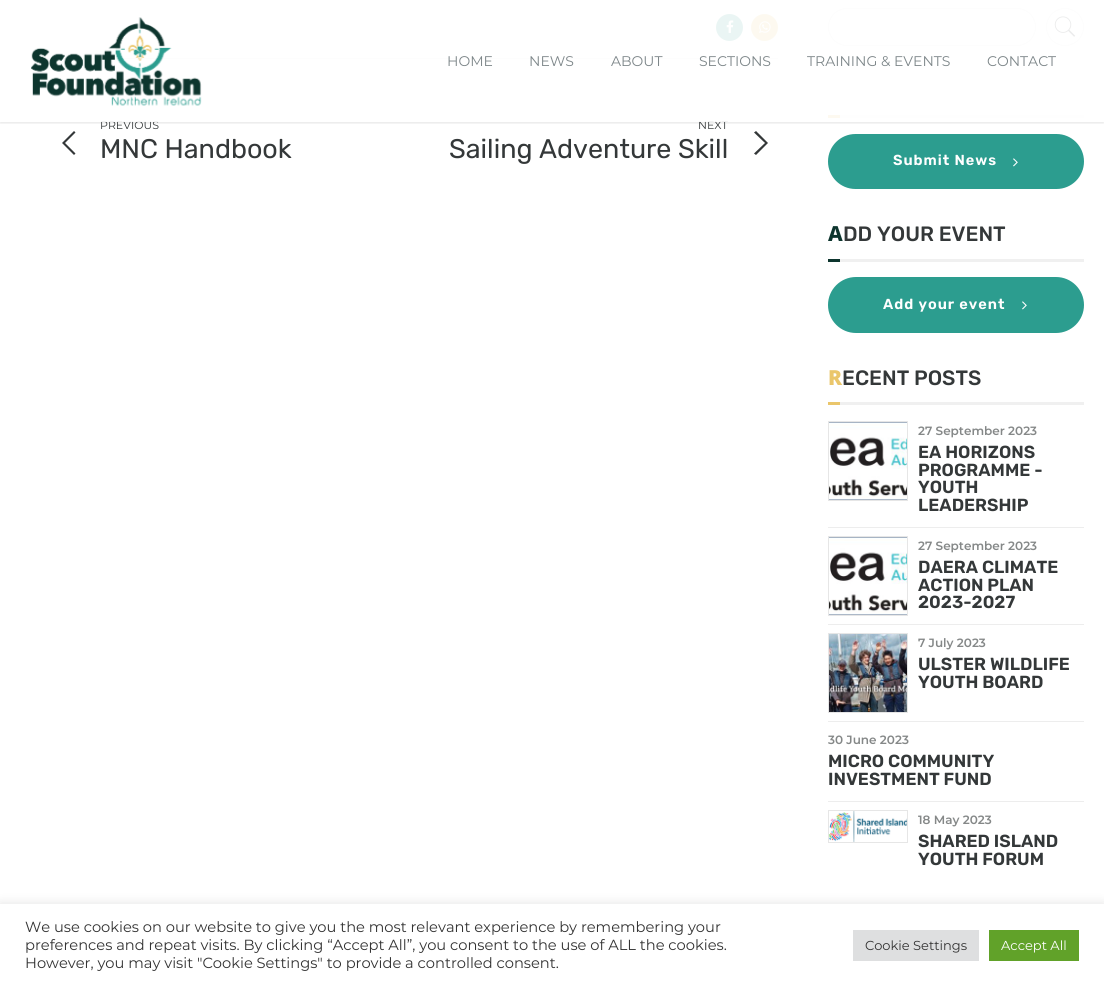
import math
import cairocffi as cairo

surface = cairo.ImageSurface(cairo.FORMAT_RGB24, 1104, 986)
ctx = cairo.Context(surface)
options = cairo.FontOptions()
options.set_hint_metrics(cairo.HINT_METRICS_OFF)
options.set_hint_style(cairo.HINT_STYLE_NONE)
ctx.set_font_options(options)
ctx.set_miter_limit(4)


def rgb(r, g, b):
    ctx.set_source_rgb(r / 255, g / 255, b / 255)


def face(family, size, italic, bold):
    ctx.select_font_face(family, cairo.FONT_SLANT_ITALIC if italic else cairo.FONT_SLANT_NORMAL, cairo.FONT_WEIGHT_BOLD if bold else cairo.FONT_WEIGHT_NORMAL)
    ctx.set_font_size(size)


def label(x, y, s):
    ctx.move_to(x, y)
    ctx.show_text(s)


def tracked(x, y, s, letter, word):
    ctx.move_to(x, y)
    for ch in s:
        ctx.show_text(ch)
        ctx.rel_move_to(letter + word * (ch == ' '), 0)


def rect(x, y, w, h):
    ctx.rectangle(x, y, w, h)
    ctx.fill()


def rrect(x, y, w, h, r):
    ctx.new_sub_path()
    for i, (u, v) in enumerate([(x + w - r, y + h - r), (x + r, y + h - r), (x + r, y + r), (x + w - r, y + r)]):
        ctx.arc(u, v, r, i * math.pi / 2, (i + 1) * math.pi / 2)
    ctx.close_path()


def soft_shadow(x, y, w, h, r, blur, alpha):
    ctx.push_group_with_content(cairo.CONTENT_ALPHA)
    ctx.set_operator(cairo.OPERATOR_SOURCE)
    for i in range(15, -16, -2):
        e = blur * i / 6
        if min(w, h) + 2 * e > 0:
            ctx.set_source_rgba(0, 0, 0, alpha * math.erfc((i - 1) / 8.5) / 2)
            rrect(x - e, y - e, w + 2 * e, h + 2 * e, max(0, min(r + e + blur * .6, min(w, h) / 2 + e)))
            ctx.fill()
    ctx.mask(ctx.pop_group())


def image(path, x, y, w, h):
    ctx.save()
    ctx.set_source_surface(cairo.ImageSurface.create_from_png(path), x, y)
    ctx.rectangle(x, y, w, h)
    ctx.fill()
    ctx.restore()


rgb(255, 255, 255)
ctx.paint()
rgb(44, 157, 143)
ctx.arc(729.5, 27.5, 13.5, 0, 2 * math.pi)
ctx.fill()
image('image1.png', 726, 20, 8, 13)
rgb(234, 198, 107)
ctx.arc(764.5, 27.5, 13.5, 0, 2 * math.pi)
ctx.fill()
image('image2.png', 759, 21, 12, 12)
rgb(230, 230, 230)
rect(50, 58, 728, 1)
rrect(828.5, 8.5, 207, 37, 18.5)
ctx.set_line_width(1)
ctx.stroke()
ctx.arc(1065, 27, 18.5, 0, 2 * math.pi)
ctx.stroke()
image('image3.png', 1054, 16, 22, 21)
rgb(234, 198, 107)
rect(828, 115, 12, 3)
rgb(240, 240, 240)
rect(840, 115, 244, 3)
ctx.save()
ctx.rectangle(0, 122, 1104, 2)
ctx.clip()
rgb(0, 0, 0)
soft_shadow(0, 1, 1104, 122, 0, 1.5, 0.11)
ctx.restore()
face('Montserrat', 11, 0, 0)
rgb(52, 56, 57)
label(100, 129, 'PREVIOUS')
label(698, 129, 'NEXT')
ctx.set_source_rgba(1, 1, 1, 0.9)
rect(50, 8, 1034, 114)
image('image0.png', 31, 17, 171, 89)
face('Montserrat', 14, 0, 0)
rgb(125, 134, 137)
label(447, 66, 'HOME')
label(529, 66, 'NEWS')
label(611, 66, 'ABOUT')
label(699, 66, 'SECTIONS')
label(807, 66, 'TRAINING & EVENTS')
label(987, 66, 'CONTACT')
rgb(52, 56, 57)
ctx.new_path()
ctx.move_to(63.5, 141.5)
ctx.line_to(62, 143)
ctx.line_to(74, 155)
ctx.line_to(75.5, 153.5)
ctx.line_to(65, 143)
ctx.line_to(75.5, 132.5)
ctx.line_to(74, 131)
ctx.close_path()
ctx.fill()
face('Rubik', 26.9, 0, 0)
label(100, 158, 'MNC Handbook')
label(449, 158, 'Sailing Adventure Skill')
ctx.new_path()
ctx.move_to(766.5, 144.5)
ctx.line_to(768, 143)
ctx.line_to(756, 131)
ctx.line_to(754, 132.5)
ctx.line_to(765, 143)
ctx.line_to(754, 153.5)
ctx.line_to(756, 155)
ctx.close_path()
ctx.fill()
rgb(44, 157, 143)
rrect(829, 135, 254, 53, 26.5)
ctx.fill_preserve()
ctx.set_line_width(2)
ctx.stroke()
face('Rubik SemiBold', 14.5, 0, 0)
rgb(255, 255, 255)
tracked(893, 165, 'Submit News', 1, 0)
image('image4.png', 1013, 158, 5, 9)
face('Noto Sans ExtraBold', 20.75, 0, 0)
rgb(13, 53, 46)
label(828, 241, 'A')
face('Rubik Medium', 20.75, 0, 0)
rgb(52, 56, 57)
label(843, 241, 'DD YOUR EVENT')
rgb(13, 53, 46)
rect(828, 259, 12, 3)
rgb(240, 240, 240)
rect(840, 259, 244, 3)
rgb(44, 157, 143)
rrect(829, 278, 254, 54, 27)
ctx.fill_preserve()
ctx.stroke()
face('Rubik SemiBold', 14.5, 0, 0)
rgb(255, 255, 255)
tracked(883, 309, 'Add your event', 1, 0)
image('image4.png', 1022, 301, 5, 9)
face('Noto Sans Black', 20.75, 0, 0)
rgb(234, 198, 107)
label(828, 385, 'R')
face('Rubik Medium', 20.75, 0, 0)
rgb(52, 56, 57)
label(842, 385, 'ECENT POSTS')
rgb(234, 198, 107)
rect(828, 402, 12, 3)
rgb(240, 240, 240)
rect(840, 402, 244, 3)
rgb(237, 237, 237)
rect(828, 527, 256, 1)
ctx.rectangle(828.5, 421.5, 79, 79)
rgb(230, 230, 230)
ctx.set_line_width(1)
ctx.stroke()
image('image5.png', 829, 422, 78, 78)
face('Montserrat SemiBold', 12, 0, 0)
rgb(133, 136, 136)
label(918, 435, '27 September 2023')
face('Rubik SemiBold', 17.5, 0, 0)
rgb(52, 56, 57)
label(918, 458, 'EA HORIZONS')
label(918, 476, 'PROGRAMME -')
label(918, 493, 'YOUTH')
label(918, 511, 'LEADERSHIP')
rgb(237, 237, 237)
rect(828, 624, 256, 1)
ctx.rectangle(828.5, 536.5, 79, 79)
rgb(230, 230, 230)
ctx.stroke()
image('image5.png', 829, 537, 78, 78)
face('Montserrat SemiBold', 12, 0, 0)
rgb(133, 136, 136)
label(918, 550, '27 September 2023')
face('Rubik SemiBold', 17.5, 0, 0)
rgb(52, 56, 57)
label(918, 573, 'DAERA CLIMATE')
label(918, 591, 'ACTION PLAN')
label(918, 608, '2023-2027')
rgb(237, 237, 237)
rect(828, 721, 256, 1)
ctx.rectangle(828.5, 633.5, 79, 79)
rgb(230, 230, 230)
ctx.stroke()
image('image6.png', 829, 634, 78, 78)
face('Montserrat SemiBold', 12, 0, 0)
rgb(133, 136, 136)
label(918, 647, '7 July 2023')
face('Rubik SemiBold', 17.5, 0, 0)
rgb(52, 56, 57)
label(918, 670, 'ULSTER WILDLIFE')
label(918, 688, 'YOUTH BOARD')
rgb(237, 237, 237)
rect(828, 801, 256, 1)
face('Montserrat SemiBold', 12, 0, 0)
rgb(133, 136, 136)
label(828, 744, '30 June 2023')
face('Rubik SemiBold', 17.5, 0, 0)
rgb(52, 56, 57)
label(828, 767, 'MICRO COMMUNITY')
label(828, 785, 'INVESTMENT FUND')
ctx.rectangle(828.5, 810.5, 79, 32)
rgb(230, 230, 230)
ctx.stroke()
image('image7.png', 829, 811, 78, 31)
face('Montserrat SemiBold', 12, 0, 0)
rgb(133, 136, 136)
label(918, 824, '18 May 2023')
face('Rubik SemiBold', 17.5, 0, 0)
rgb(52, 56, 57)
label(918, 847, 'SHARED ISLAND')
label(918, 865, 'YOUTH FORUM')
rgb(172, 171, 171)
soft_shadow(0, 903, 1104, 82, 0, 5, 0.3)
rgb(255, 255, 255)
rect(0, 904, 1104, 82)
face('Montserrat', 14.65, 0, 0)
rgb(51, 51, 51)
label(25, 932, 'We use cookies on our website to give you the most relevant experience by remembering your')
label(25, 950, 'preferences and repeat visits. By clicking “Accept All”, you consent to the use of ALL the cookies.')
label(25, 968, 'However, you may visit "Cookie Settings" to provide a controlled consent.')
rgb(222, 223, 224)
rect(853, 930, 126, 31)
face('Montserrat', 13, 0, 0)
rgb(51, 51, 51)
label(865, 950, 'Cookie Settings')
rgb(97, 162, 41)
rect(989, 930, 90, 31)
rgb(255, 255, 255)
label(1001, 950, 'Accept All')
surface.write_to_png('render.png')
